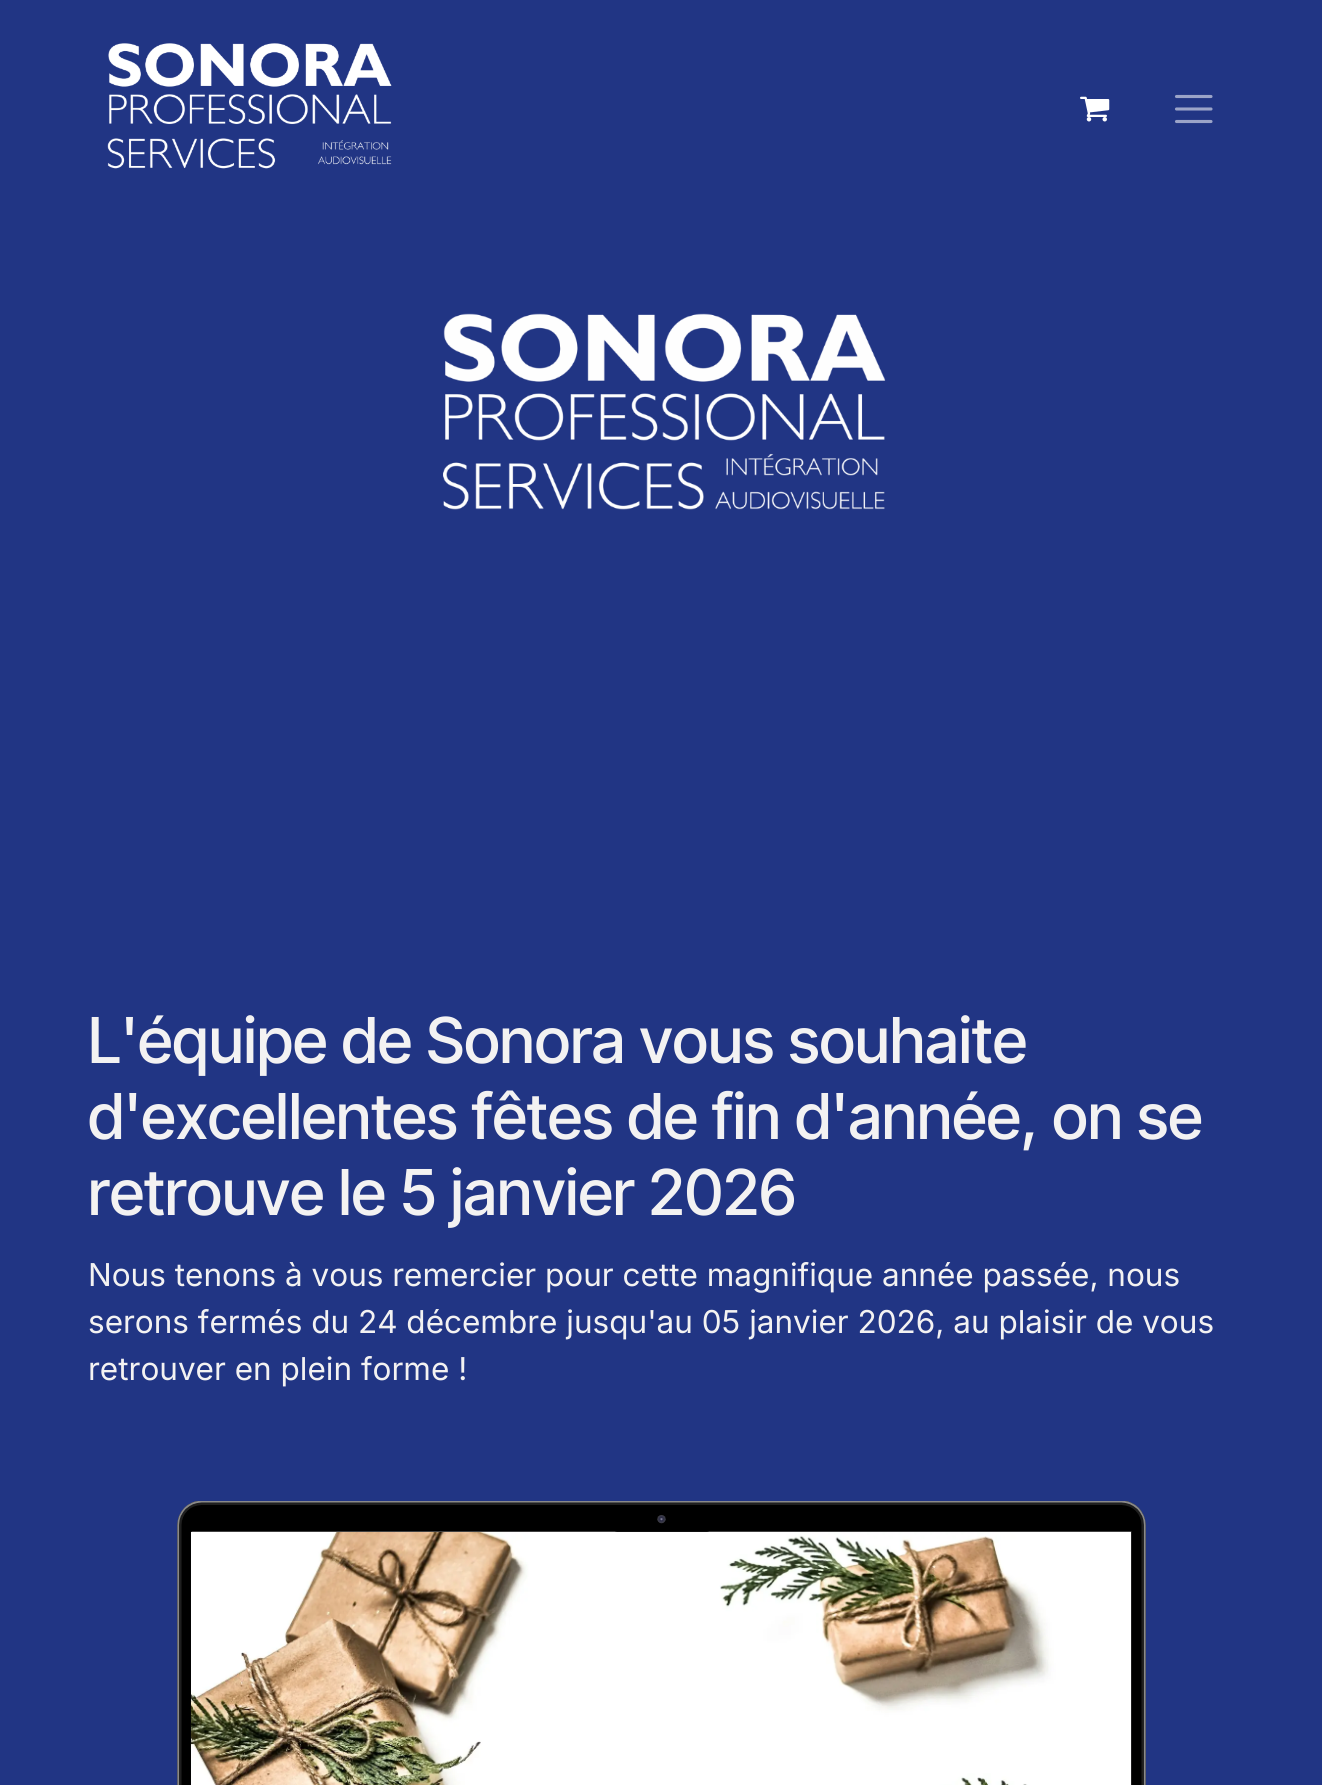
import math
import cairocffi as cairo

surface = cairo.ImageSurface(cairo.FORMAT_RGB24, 1322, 1785)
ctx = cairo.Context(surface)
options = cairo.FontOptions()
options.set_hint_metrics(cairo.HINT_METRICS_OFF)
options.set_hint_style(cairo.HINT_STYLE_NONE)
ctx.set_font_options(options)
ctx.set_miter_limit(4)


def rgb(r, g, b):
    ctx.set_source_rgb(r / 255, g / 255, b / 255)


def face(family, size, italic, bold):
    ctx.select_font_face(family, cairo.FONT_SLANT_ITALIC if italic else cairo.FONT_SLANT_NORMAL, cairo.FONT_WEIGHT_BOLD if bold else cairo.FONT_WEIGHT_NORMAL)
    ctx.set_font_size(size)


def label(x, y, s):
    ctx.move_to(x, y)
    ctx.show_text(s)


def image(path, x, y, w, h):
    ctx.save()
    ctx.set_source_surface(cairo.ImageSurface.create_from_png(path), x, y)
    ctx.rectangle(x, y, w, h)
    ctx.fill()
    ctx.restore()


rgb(33, 53, 132)
ctx.paint()
image('image0.png', 107, 43, 285, 126)
image('image1.png', 1080, 96, 30, 26)
ctx.new_path()
ctx.move_to(1176.5, 96.5)
ctx.line_to(1211, 96.5)
ctx.move_to(1176.5, 109)
ctx.line_to(1211, 109)
ctx.move_to(1176.5, 121.5)
ctx.line_to(1211, 121.5)
rgb(155, 164, 200)
ctx.set_line_width(3.1)
ctx.set_line_cap(cairo.LINE_CAP_ROUND)
ctx.stroke()
image('image2.png', 443, 313, 443, 197)
face('Inter Tight Medium', 63.25, 0, 0)
rgb(243, 242, 242)
label(88, 1063, 'L\'équipe de Sonora vous souhaite')
label(88, 1139, 'd\'excellentes fêtes de fin d\'année, on se')
label(88, 1215, 'retrouve le 5 janvier 2026')
face('Inter', 31.5, 0, 0)
label(88, 1286, 'Nous tenons à vous remercier pour cette magnifique année passée, nous')
label(88, 1333, 'serons fermés du 24 décembre jusqu\'au 05 janvier 2026, au plaisir de vous')
label(88, 1380, 'retrouver en plein forme !')
image('image3.png', 177, 1501, 969, 284)
surface.write_to_png('render.png')
